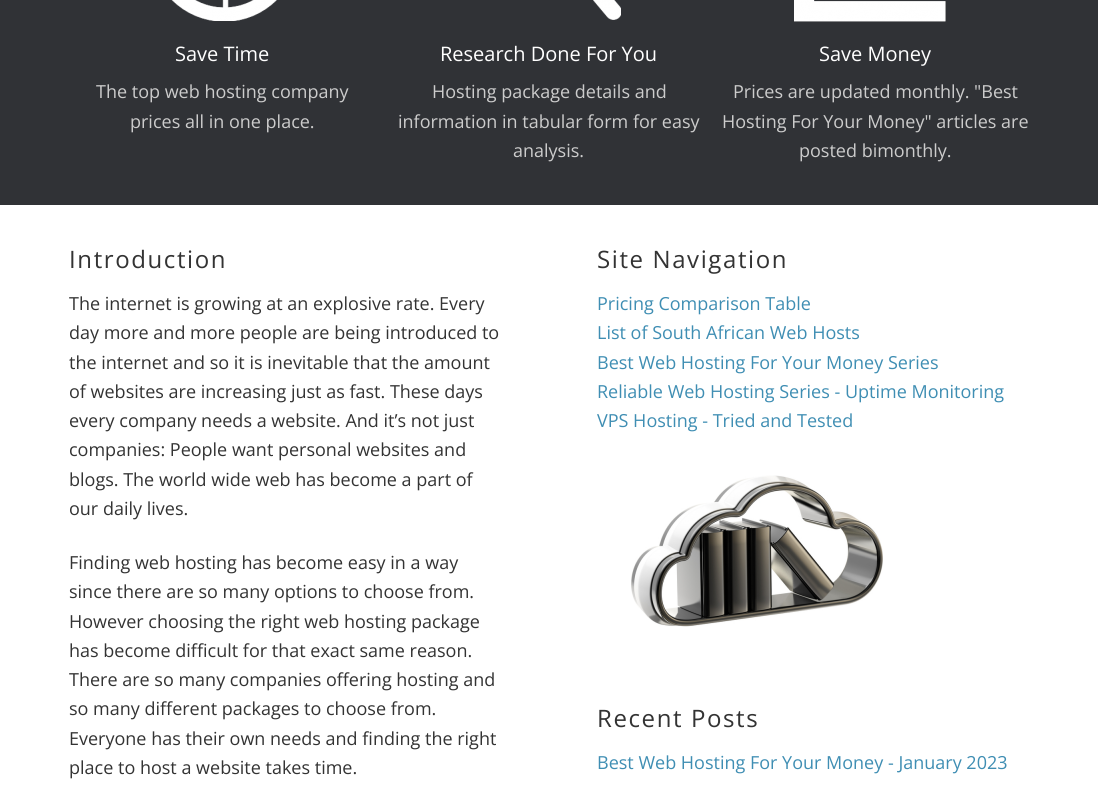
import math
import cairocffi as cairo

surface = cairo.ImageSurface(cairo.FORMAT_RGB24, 1098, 786)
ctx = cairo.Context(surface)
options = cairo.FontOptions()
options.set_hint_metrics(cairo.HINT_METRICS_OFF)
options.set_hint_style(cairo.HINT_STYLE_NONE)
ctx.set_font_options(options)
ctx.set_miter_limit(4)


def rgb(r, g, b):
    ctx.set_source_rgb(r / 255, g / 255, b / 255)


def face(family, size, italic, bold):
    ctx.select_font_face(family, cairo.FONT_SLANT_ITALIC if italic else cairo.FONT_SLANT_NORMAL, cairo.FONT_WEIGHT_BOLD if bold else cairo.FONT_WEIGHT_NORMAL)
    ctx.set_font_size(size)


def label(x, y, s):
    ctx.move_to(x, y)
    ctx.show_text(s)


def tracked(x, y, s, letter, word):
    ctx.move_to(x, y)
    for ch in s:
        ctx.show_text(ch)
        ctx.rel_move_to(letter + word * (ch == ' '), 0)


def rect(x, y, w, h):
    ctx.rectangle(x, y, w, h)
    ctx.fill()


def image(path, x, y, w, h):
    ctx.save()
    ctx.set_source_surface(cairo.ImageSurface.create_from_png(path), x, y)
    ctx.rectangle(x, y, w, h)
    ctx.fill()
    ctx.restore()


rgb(48, 50, 54)
ctx.paint()
image('image0.png', 171, 0, 106, 21)
face('Open Sans', 20, 0, 0)
rgb(255, 255, 255)
label(175, 61, 'Save Time')
face('Open Sans', 18, 0, 0)
rgb(204, 204, 204)
label(96, 98, 'The top web hosting company')
label(130, 128, 'prices all in one place.')
image('image1.png', 593, 0, 28, 20)
face('Open Sans', 20, 0, 0)
rgb(255, 255, 255)
label(440, 61, 'Research Done For You')
face('Open Sans', 18, 0, 0)
rgb(204, 204, 204)
label(432, 98, 'Hosting package details and')
label(398, 128, 'information in tabular form for easy')
label(513, 157, 'analysis.')
image('image2.png', 794, 0, 152, 22)
face('Open Sans', 20, 0, 0)
rgb(255, 255, 255)
label(819, 61, 'Save Money')
face('Open Sans', 18, 0, 0)
rgb(204, 204, 204)
label(733, 98, 'Prices are updated monthly. "Best')
label(722, 128, 'Hosting For Your Money" articles are')
label(799, 157, 'posted bimonthly.')
rgb(255, 255, 255)
rect(0, 205, 1098, 581)
face('Open Sans', 24, 0, 0)
rgb(51, 51, 51)
tracked(69, 268, 'Introduction', 1.6, 0)
face('Open Sans', 18, 0, 0)
label(69, 310, 'The internet is growing at an explosive rate. Every')
label(69, 339, 'day more and more people are being introduced to')
label(69, 369, 'the internet and so it is inevitable that the amount')
label(69, 398, 'of websites are increasing just as fast. These days')
label(69, 427, 'every company needs a website. And it’s not just')
label(69, 456, 'companies: People want personal websites and')
label(69, 486, 'blogs. The world wide web has become a part of')
label(69, 515, 'our daily lives.')
label(69, 569, 'Finding web hosting has become easy in a way')
label(69, 598, 'since there are so many options to choose from.')
label(69, 628, 'However choosing the right web hosting package')
label(69, 657, 'has become difficult for that exact same reason.')
label(69, 686, 'There are so many companies offering hosting and')
label(69, 715, 'so many different packages to choose from.')
label(69, 745, 'Everyone has their own needs and finding the right')
label(69, 774, 'place to host a website takes time.')
face('Open Sans', 24, 0, 0)
tracked(597, 268, 'Site Navigation', 1.6, 0)
face('Open Sans', 18, 0, 0)
rgb(63, 142, 179)
label(597, 310, 'Pricing Comparison Table')
label(597, 339, 'List of South African Web Hosts')
label(597, 369, 'Best Web Hosting For Your Money Series')
label(597, 398, 'Reliable Web Hosting Series - Uptime Monitoring')
label(597, 427, 'VPS Hosting - Tried and Tested')
image('image3.png', 631, 475, 252, 152)
face('Open Sans', 24, 0, 0)
rgb(51, 51, 51)
tracked(597, 727, 'Recent Posts', 1.6, 0)
face('Open Sans', 18, 0, 0)
rgb(63, 142, 179)
label(597, 769, 'Best Web Hosting For Your Money - January 2023')
surface.write_to_png('render.png')
